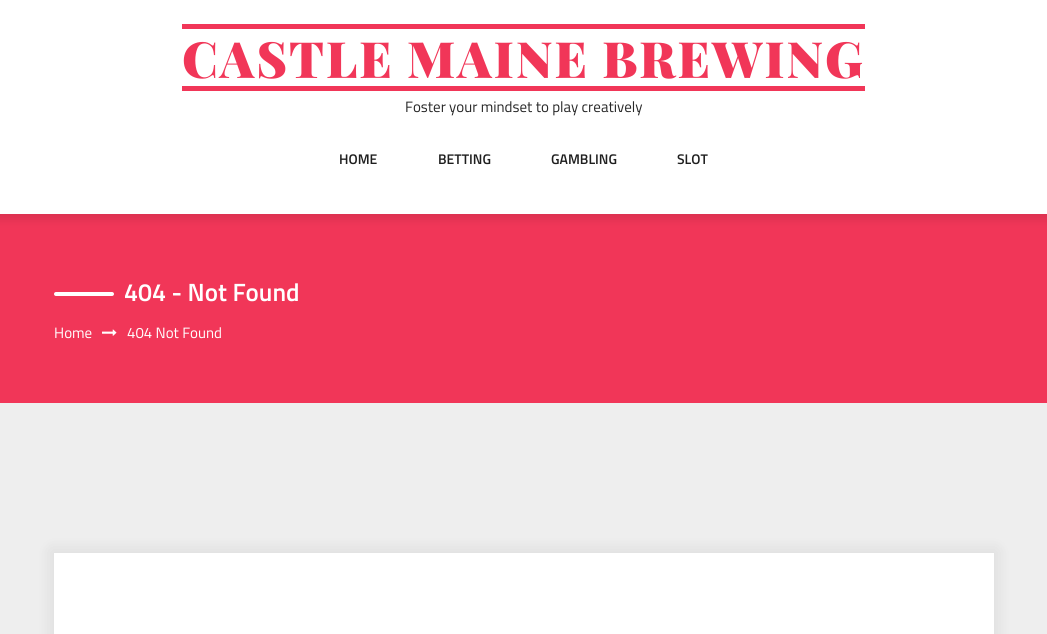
import math
import cairocffi as cairo

surface = cairo.ImageSurface(cairo.FORMAT_RGB24, 1047, 634)
ctx = cairo.Context(surface)
options = cairo.FontOptions()
options.set_hint_metrics(cairo.HINT_METRICS_OFF)
options.set_hint_style(cairo.HINT_STYLE_NONE)
ctx.set_font_options(options)
ctx.set_miter_limit(4)


def rgb(r, g, b):
    ctx.set_source_rgb(r / 255, g / 255, b / 255)


def face(family, size, italic, bold):
    ctx.select_font_face(family, cairo.FONT_SLANT_ITALIC if italic else cairo.FONT_SLANT_NORMAL, cairo.FONT_WEIGHT_BOLD if bold else cairo.FONT_WEIGHT_NORMAL)
    ctx.set_font_size(size)


def label(x, y, s):
    ctx.move_to(x, y)
    ctx.show_text(s)


def tracked(x, y, s, letter, word):
    ctx.move_to(x, y)
    for ch in s:
        ctx.show_text(ch)
        ctx.rel_move_to(letter + word * (ch == ' '), 0)


def rect(x, y, w, h):
    ctx.rectangle(x, y, w, h)
    ctx.fill()


def rrect(x, y, w, h, r):
    ctx.new_sub_path()
    for i, (u, v) in enumerate([(x + w - r, y + h - r), (x + r, y + h - r), (x + r, y + r), (x + w - r, y + r)]):
        ctx.arc(u, v, r, i * math.pi / 2, (i + 1) * math.pi / 2)
    ctx.close_path()


def soft_shadow(x, y, w, h, r, blur, alpha):
    ctx.push_group_with_content(cairo.CONTENT_ALPHA)
    ctx.set_operator(cairo.OPERATOR_SOURCE)
    for i in range(15, -16, -2):
        e = blur * i / 6
        if min(w, h) + 2 * e > 0:
            ctx.set_source_rgba(0, 0, 0, alpha * math.erfc((i - 1) / 8.5) / 2)
            rrect(x - e, y - e, w + 2 * e, h + 2 * e, max(0, min(r + e + blur * .6, min(w, h) / 2 + e)))
            ctx.fill()
    ctx.mask(ctx.pop_group())


def image(path, x, y, w, h):
    ctx.save()
    ctx.set_source_surface(cairo.ImageSurface.create_from_png(path), x, y)
    ctx.rectangle(x, y, w, h)
    ctx.fill()
    ctx.restore()


rgb(238, 238, 238)
ctx.paint()
rgb(241, 54, 88)
rect(0, 214, 1047, 189)
rgb(0, 0, 0)
soft_shadow(-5, -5, 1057, 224, 0, 5, 0.1)
rgb(255, 255, 255)
rect(0, 0, 1047, 214)
rgb(241, 54, 88)
rect(182, 24, 683, 5)
face('Playfair Display SC Black', 50, 0, 0)
tracked(182, 78, 'CASTLE MAINE BREWING', 2, 0)
rect(182, 86, 683, 5)
face('Titillium Web', 15, 0, 0)
rgb(40, 40, 40)
label(405, 112, 'Foster your mindset to play creatively')
face('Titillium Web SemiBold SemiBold', 14, 0, 0)
rgb(31, 31, 31)
label(339, 164, 'HOME')
label(438, 164, 'BETTING')
label(551, 164, 'GAMBLING')
label(677, 164, 'SLOT')
rgb(255, 255, 255)
rrect(54, 292, 60, 4, 2)
ctx.fill()
face('Titillium Web SemiBold SemiBold', 25, 0, 0)
label(124, 301, '404 - Not Found')
face('Titillium Web', 15, 0, 0)
label(54, 338, 'Home')
image('image0.png', 102, 329, 15, 7)
label(127, 338, '404 Not Found')
rgb(0, 0, 0)
soft_shadow(51, 550, 946, 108, 0, 8, 0.08)
rgb(255, 255, 255)
rect(54, 553, 940, 81)
surface.write_to_png('render.png')
